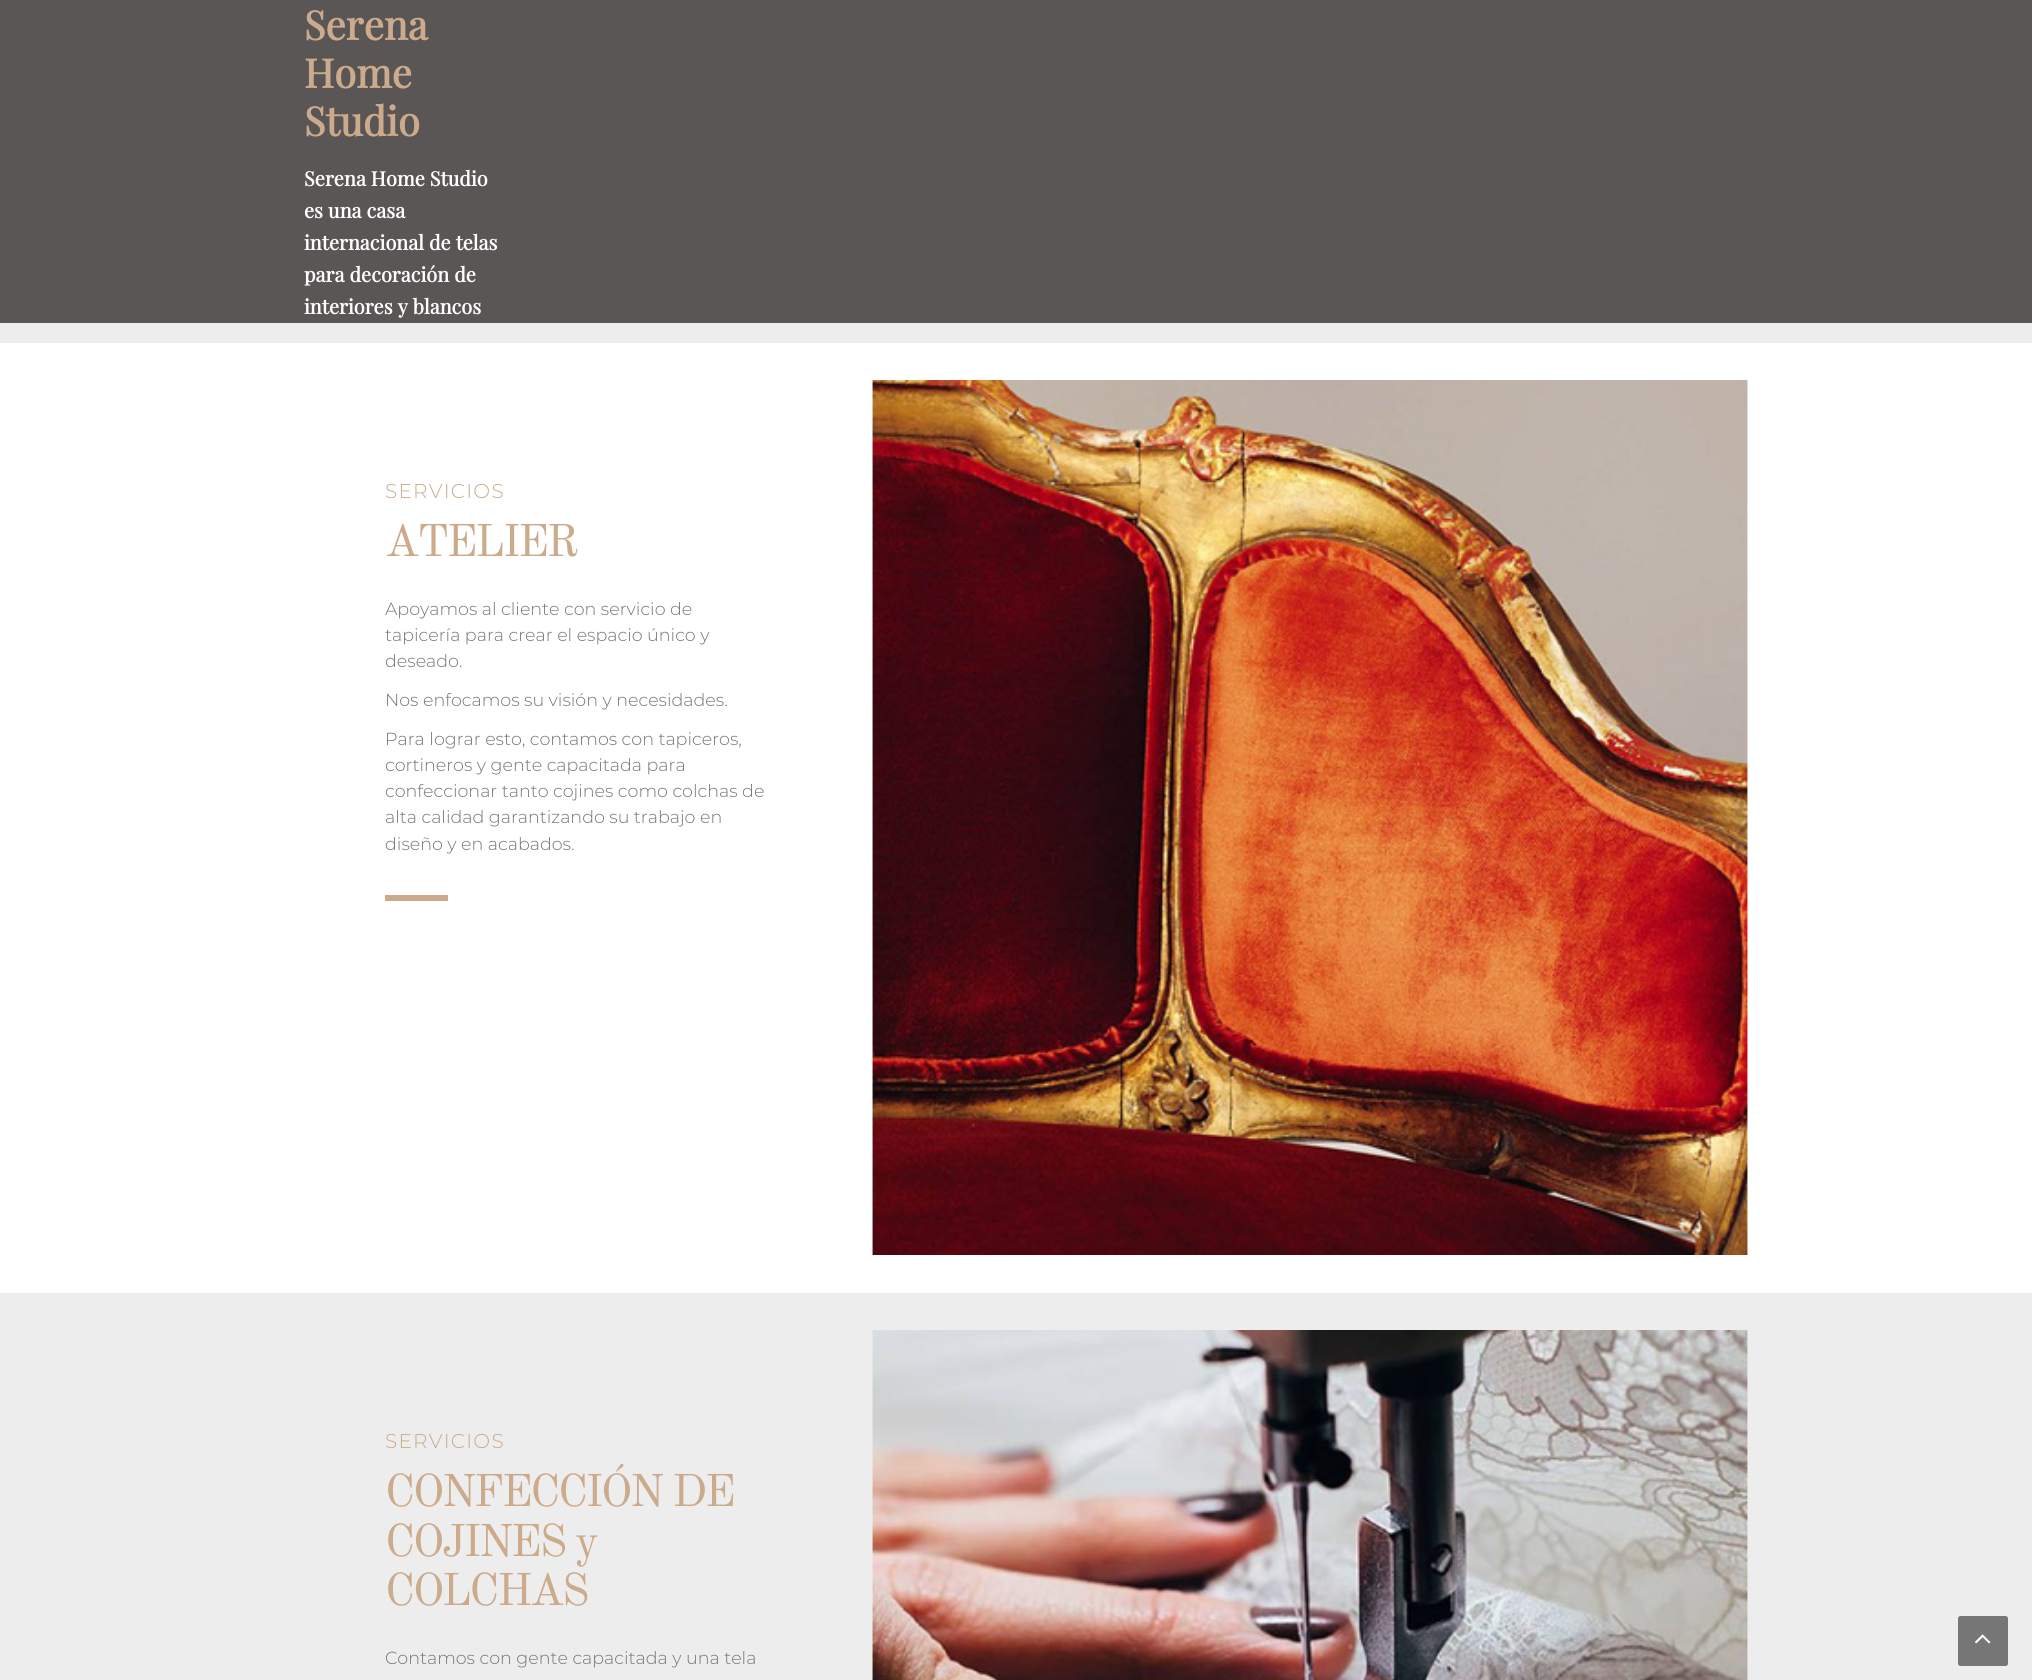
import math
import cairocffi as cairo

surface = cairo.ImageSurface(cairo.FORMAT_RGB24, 2032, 1680)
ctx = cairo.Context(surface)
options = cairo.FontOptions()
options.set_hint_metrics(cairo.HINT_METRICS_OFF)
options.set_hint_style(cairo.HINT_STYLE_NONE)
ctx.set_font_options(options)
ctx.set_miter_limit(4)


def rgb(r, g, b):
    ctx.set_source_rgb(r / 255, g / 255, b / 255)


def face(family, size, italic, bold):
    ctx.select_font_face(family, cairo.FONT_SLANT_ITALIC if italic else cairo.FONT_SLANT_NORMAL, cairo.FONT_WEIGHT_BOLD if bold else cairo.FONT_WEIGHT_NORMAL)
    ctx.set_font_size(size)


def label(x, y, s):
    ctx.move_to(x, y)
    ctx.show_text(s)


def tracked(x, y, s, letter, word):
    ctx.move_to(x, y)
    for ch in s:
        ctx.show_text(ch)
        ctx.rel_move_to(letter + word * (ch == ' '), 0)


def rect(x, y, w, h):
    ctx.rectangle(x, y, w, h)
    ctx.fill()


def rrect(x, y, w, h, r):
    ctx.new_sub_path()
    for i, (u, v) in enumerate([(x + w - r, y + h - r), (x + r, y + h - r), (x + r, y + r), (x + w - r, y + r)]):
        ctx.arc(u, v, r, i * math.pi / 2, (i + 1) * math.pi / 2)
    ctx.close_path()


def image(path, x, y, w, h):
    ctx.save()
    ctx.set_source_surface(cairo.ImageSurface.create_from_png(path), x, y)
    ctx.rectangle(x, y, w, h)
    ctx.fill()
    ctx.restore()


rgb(255, 255, 255)
ctx.paint()
rgb(89, 86, 85)
rect(0, 0, 2032, 323)
face('Playfair Display', 40, 0, 1)
rgb(203, 171, 140)
label(304, 40, 'Serena')
label(304, 88, 'Home')
label(304, 136, 'Studio')
face('Playfair Display', 20, 0, 1)
rgb(255, 255, 255)
label(304, 186, 'Serena Home Studio')
label(304, 218, 'es una casa')
label(304, 250, 'internacional de telas')
label(304, 282, 'para decoración de')
label(304, 314, 'interiores y blancos')
rgb(237, 237, 237)
rect(0, 323, 2032, 20)
face('Montserrat Light', 20, 0, 0)
rgb(203, 171, 140)
tracked(385, 498, 'SERVICIOS', 1.25, 0)
face('Old Standard TT', 45, 0, 0)
tracked(385, 556, 'ATELIER', -2.5, 0)
face('Montserrat Light', 17.5, 0, 0)
rgb(118, 118, 118)
label(385, 615, 'Apoyamos al cliente con servicio de')
label(385, 641, 'tapicería para crear el espacio único y')
label(385, 667, 'deseado.')
label(385, 706, 'Nos enfocamos su visión y necesidades.')
label(385, 745, 'Para lograr esto, contamos con tapiceros,')
label(385, 771, 'cortineros y gente capacitada para')
label(385, 797, 'confeccionar tanto cojines como colchas de')
label(385, 823, 'alta calidad garantizando su trabajo en')
label(385, 850, 'diseño y en acabados.')
rgb(203, 171, 140)
rect(385, 895, 63, 6)
image('image0.png', 872, 380, 876, 875)
image('image1.png', 872, 380, 876, 875)
rgb(237, 237, 237)
rect(0, 1293, 2032, 387)
face('Montserrat Light', 20, 0, 0)
rgb(203, 171, 140)
tracked(385, 1448, 'SERVICIOS', 1.25, 0)
face('Old Standard TT', 45, 0, 0)
tracked(385, 1506, 'CONFECCIÓN DE', -2.5, 0)
tracked(385, 1556, 'COJINES y', -2.5, 0)
tracked(385, 1605, 'COLCHAS', -2.5, 0)
face('Montserrat Light', 17.5, 0, 0)
rgb(118, 118, 118)
label(385, 1664, 'Contamos con gente capacitada y una tela')
image('image2.png', 872, 1330, 876, 350)
image('image3.png', 872, 1330, 876, 350)
rrect(1958, 1616, 50, 50, 2.5)
ctx.fill()
image('image4.png', 1975, 1634, 16, 10)
surface.write_to_png('render.png')
